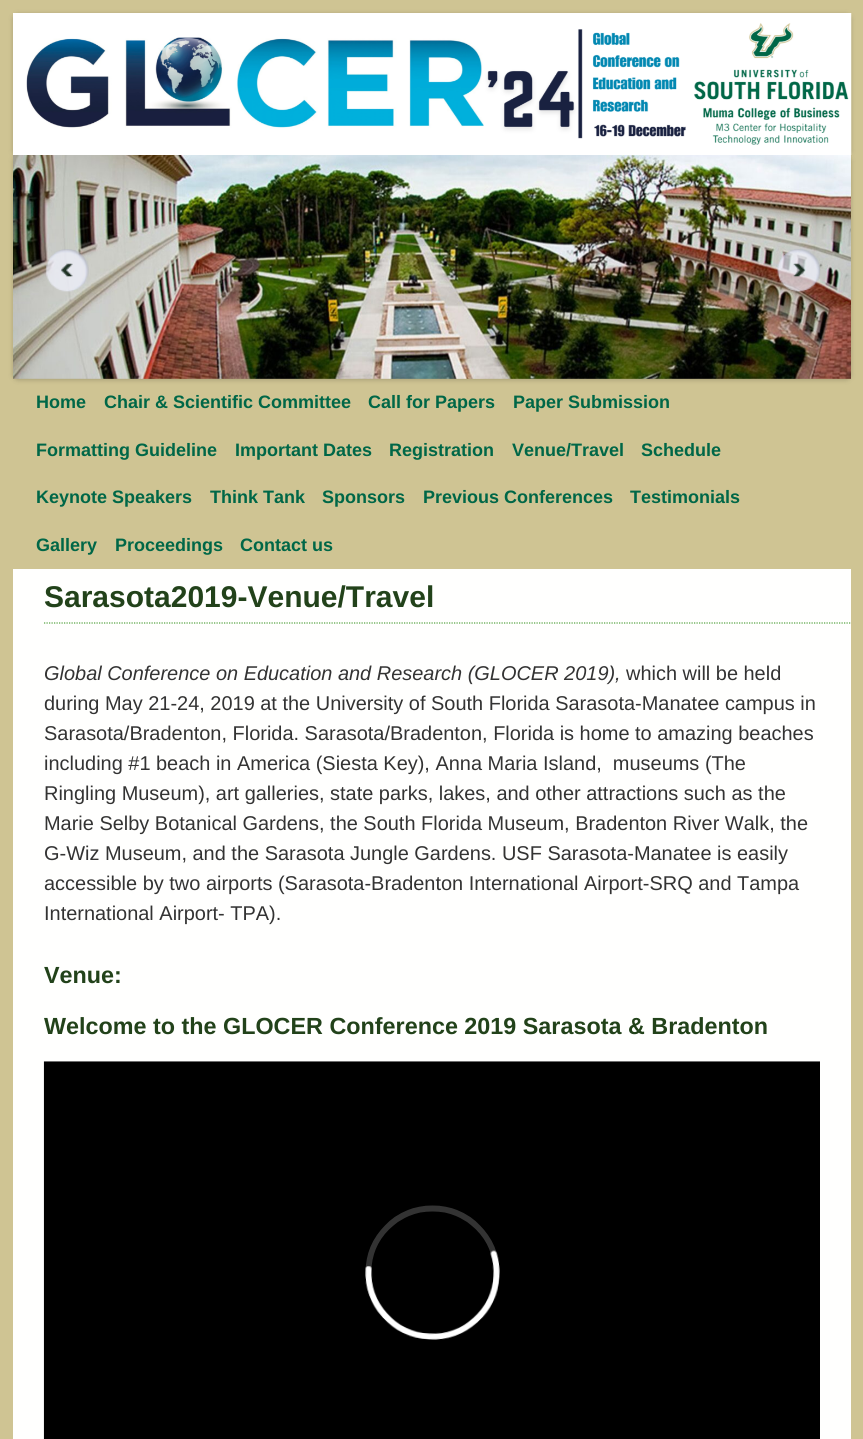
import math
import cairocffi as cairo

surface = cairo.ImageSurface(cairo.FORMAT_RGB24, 863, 1439)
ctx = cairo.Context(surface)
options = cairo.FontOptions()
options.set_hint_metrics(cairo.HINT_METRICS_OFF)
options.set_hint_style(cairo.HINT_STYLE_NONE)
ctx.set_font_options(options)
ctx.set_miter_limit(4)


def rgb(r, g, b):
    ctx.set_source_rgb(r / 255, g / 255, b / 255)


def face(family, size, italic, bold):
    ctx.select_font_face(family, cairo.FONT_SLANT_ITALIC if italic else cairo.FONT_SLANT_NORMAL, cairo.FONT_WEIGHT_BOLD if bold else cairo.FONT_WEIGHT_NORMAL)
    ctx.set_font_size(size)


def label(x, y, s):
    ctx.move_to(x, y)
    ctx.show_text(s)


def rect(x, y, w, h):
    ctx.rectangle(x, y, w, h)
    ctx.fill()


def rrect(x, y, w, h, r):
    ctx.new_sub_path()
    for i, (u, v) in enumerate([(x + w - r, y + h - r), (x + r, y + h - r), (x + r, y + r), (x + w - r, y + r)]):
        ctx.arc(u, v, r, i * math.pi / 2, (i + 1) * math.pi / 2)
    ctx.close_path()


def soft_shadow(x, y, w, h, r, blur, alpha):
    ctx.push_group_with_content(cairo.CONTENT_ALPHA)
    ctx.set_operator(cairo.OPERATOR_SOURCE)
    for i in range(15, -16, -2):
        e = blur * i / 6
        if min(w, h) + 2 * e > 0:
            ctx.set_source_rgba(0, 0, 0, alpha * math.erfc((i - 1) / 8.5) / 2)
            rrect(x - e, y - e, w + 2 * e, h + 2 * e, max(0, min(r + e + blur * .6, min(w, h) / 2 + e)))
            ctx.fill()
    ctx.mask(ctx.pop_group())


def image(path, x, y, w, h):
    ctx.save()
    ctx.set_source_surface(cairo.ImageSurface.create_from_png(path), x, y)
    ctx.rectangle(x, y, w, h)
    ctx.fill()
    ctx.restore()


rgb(207, 196, 147)
ctx.paint()
rgb(0, 0, 0)
soft_shadow(13, 14, 838, 142, 5, 2.5, 0.2)
soft_shadow(13, 156, 838, 224, 5, 2.5, 0.2)
image('image0.png', 13, 13, 839, 142)
image('image1.png', 13, 155, 838, 224)
image('image2.png', 45, 249, 44, 43)
image('image3.png', 777, 249, 43, 43)
face('Liberation Sans', 18, 0, 1)
rgb(0, 103, 71)
label(36, 408, 'Home')
label(104, 408, 'Chair & Scientific Committee')
label(368, 408, 'Call for Papers')
label(513, 408, 'Paper Submission')
label(36, 456, 'Formatting Guideline')
label(235, 456, 'Important Dates')
label(389, 456, 'Registration')
label(512, 456, 'Venue/Travel')
label(641, 456, 'Schedule')
label(36, 503, 'Keynote Speakers')
label(210, 503, 'Think Tank')
label(322, 503, 'Sponsors')
label(423, 503, 'Previous Conferences')
label(630, 503, 'Testimonials')
label(36, 551, 'Gallery')
label(115, 551, 'Proceedings')
label(240, 551, 'Contact us')
rgb(255, 255, 254)
rect(13, 569, 838, 870)
ctx.save()
ctx.rectangle(13, 569, 838, 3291)
ctx.clip()
ctx.new_path()
ctx.move_to(44, 623)
ctx.line_to(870, 623)
rgb(83, 161, 63)
ctx.set_line_width(1.2)
ctx.set_dash([1.25, 1.25])
ctx.stroke()
ctx.restore()
face('Liberation Sans', 30, 0, 1)
rgb(34, 66, 26)
label(44, 607, 'Sarasota2019-Venue/Travel')
face('Liberation Sans', 19.95, 1, 0)
rgb(51, 51, 51)
label(44, 680, 'Global Conference on Education and Research (GLOCER 2019),')
face('Liberation Sans', 19.95, 0, 0)
label(626, 680, 'which will be held')
label(44, 710, 'during May 21-24, 2019 at the University of South Florida Sarasota-Manatee campus in')
label(44, 740, 'Sarasota/Bradenton, Florida. Sarasota/Bradenton, Florida is home to amazing beaches')
label(44, 770, 'including #1 beach in America (Siesta Key), Anna Maria Island,  museums (The')
label(44, 800, 'Ringling Museum), art galleries, state parks, lakes, and other attractions such as the')
label(44, 830, 'Marie Selby Botanical Gardens, the South Florida Museum, Bradenton River Walk, the')
label(44, 860, 'G-Wiz Museum, and the Sarasota Jungle Gardens. USF Sarasota-Manatee is easily')
label(44, 890, 'accessible by two airports (Sarasota-Bradenton International Airport-SRQ and Tampa')
label(44, 920, 'International Airport- TPA).')
face('Liberation Sans', 23.35, 0, 1)
rgb(34, 66, 26)
label(44, 983, 'Venue:')
label(44, 1034, 'Welcome to the GLOCER Conference 2019 Sarasota & Bradenton')
image('image4.png', 43, 1061, 777, 378)
surface.write_to_png('render.png')
